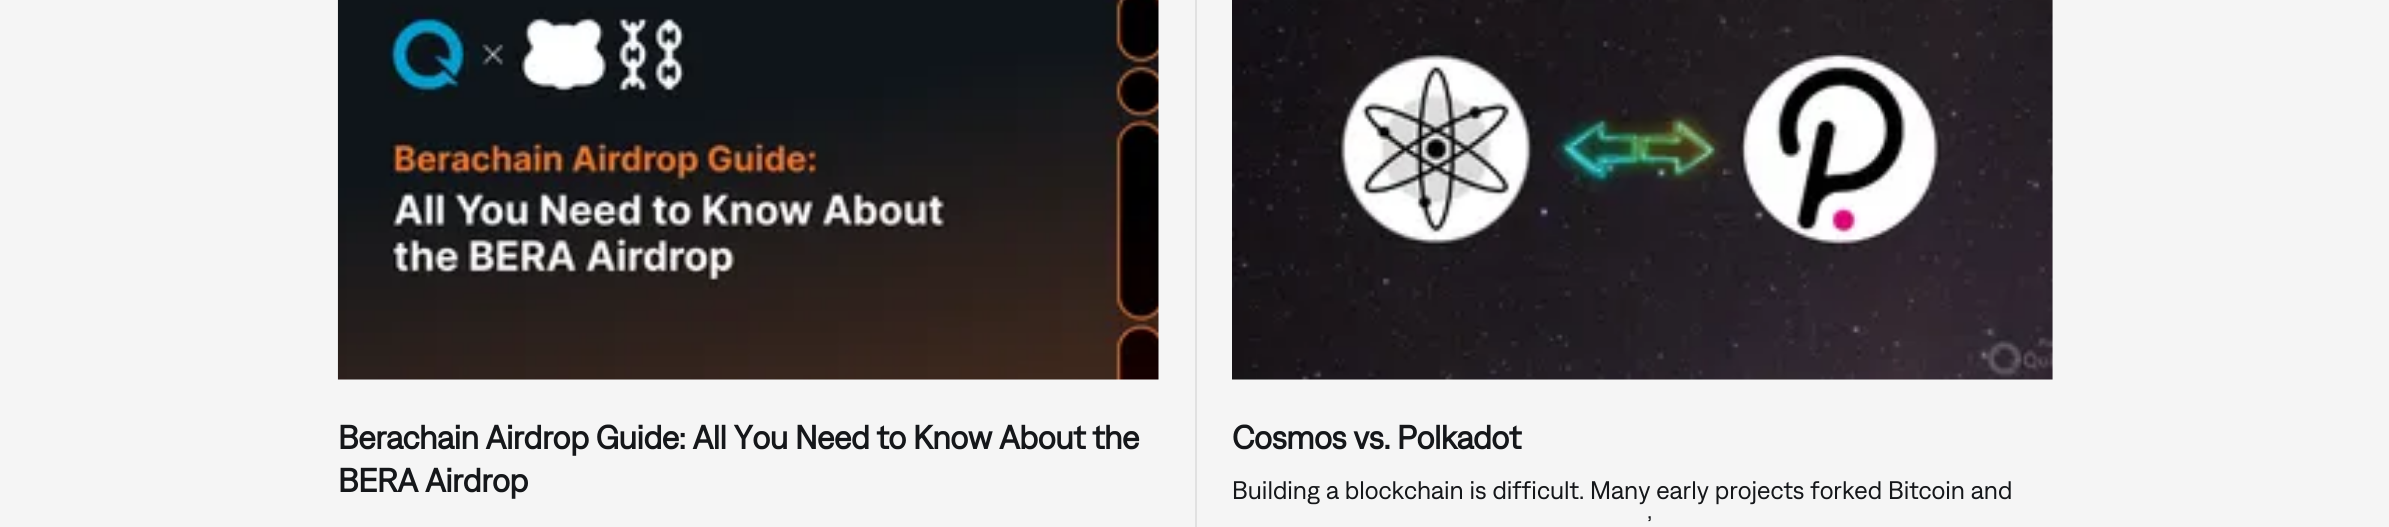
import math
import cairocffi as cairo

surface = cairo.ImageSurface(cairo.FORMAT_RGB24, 2389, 527)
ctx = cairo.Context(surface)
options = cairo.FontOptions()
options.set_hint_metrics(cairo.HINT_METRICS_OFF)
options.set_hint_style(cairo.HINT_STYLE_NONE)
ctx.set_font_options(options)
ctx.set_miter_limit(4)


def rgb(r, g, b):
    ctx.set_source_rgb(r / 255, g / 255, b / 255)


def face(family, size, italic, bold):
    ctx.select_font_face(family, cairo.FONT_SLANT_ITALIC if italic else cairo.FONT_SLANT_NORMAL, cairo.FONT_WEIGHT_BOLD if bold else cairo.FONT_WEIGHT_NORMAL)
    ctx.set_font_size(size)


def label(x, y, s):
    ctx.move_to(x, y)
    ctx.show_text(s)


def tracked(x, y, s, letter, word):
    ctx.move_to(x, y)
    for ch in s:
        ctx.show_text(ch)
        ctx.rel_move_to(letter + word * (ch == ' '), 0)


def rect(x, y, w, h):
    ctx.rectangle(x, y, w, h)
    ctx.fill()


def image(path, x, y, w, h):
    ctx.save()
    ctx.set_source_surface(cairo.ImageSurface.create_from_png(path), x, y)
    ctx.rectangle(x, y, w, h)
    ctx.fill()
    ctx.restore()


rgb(245, 245, 245)
ctx.paint()
image('image0.png', 337, 0, 822, 380)
face('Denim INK', 33.25, 0, 1)
rgb(21, 23, 26)
tracked(338, 449, 'Berachain Airdrop Guide: All You Need to Know About the', -0.47, 0)
tracked(338, 492, 'BERA Airdrop', -0.47, 0)
rgb(225, 225, 225)
rect(1195, 0, 2, 527)
image('image1.png', 1232, 0, 821, 380)
rgb(21, 23, 26)
tracked(1232, 449, 'Cosmos vs. Polkadot', -0.47, 0)
face('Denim', 25.4, 0, 0)
label(1232, 499, 'Building a blockchain is difficult. Many early projects forked Bitcoin and')
label(1647, 534, '’')
surface.write_to_png('render.png')
